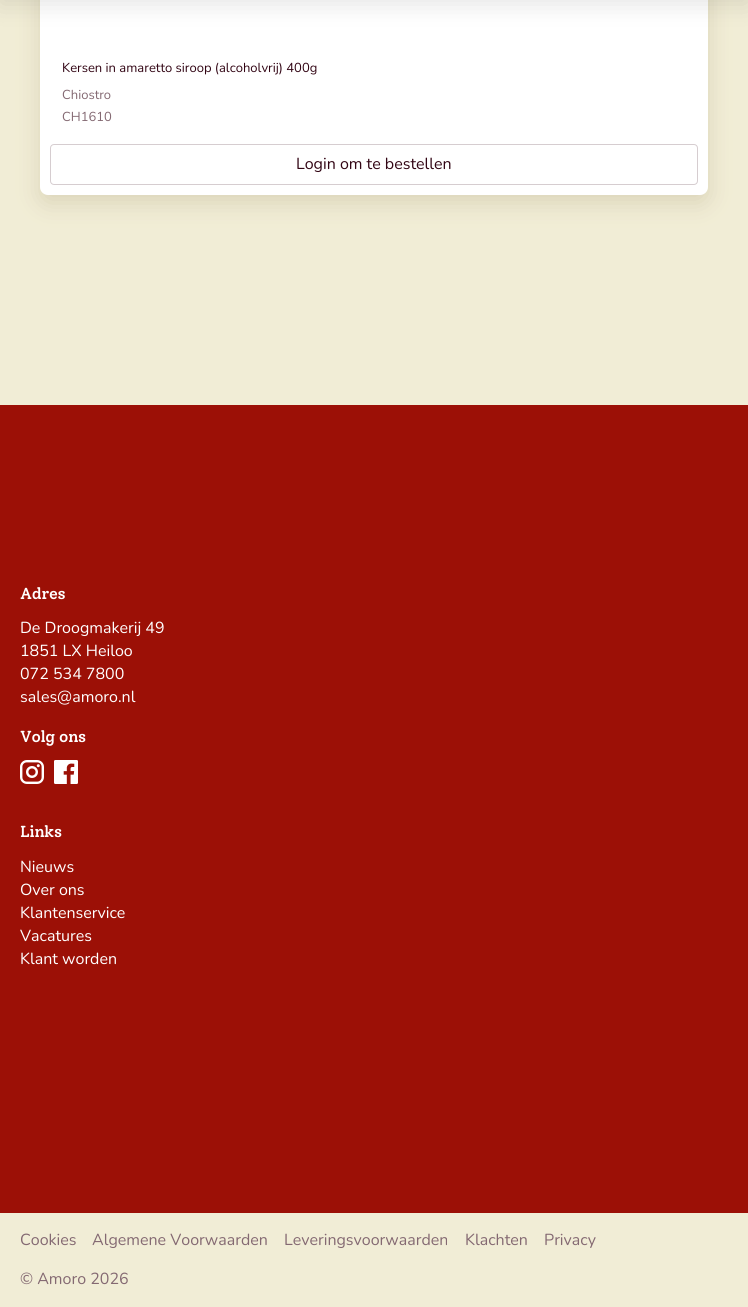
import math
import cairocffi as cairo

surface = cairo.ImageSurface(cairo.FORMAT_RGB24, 748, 1307)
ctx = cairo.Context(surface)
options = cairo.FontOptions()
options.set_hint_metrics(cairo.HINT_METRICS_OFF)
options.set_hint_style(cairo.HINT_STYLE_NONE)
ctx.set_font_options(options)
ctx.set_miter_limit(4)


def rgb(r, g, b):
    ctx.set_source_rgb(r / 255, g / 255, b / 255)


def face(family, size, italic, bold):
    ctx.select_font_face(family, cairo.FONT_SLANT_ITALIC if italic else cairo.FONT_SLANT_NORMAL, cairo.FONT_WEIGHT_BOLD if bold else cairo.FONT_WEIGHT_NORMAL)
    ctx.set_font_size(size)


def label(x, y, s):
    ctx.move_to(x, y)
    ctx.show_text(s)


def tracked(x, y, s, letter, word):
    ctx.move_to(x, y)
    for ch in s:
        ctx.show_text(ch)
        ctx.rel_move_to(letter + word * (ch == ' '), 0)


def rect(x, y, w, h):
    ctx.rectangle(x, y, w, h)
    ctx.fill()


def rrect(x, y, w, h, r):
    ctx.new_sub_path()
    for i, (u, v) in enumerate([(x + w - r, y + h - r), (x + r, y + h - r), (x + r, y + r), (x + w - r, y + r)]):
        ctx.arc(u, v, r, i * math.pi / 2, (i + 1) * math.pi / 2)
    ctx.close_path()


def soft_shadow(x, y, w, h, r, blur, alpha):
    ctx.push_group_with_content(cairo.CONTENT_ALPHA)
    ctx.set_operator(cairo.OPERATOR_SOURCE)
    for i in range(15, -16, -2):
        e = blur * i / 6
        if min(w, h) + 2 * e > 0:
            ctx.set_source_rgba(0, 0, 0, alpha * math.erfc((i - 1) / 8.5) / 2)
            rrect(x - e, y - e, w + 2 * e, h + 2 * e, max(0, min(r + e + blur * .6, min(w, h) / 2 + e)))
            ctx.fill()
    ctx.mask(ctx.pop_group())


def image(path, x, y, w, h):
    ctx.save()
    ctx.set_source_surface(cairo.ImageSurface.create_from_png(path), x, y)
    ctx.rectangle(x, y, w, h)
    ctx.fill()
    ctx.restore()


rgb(241, 237, 214)
ctx.paint()
rgb(165, 152, 116)
soft_shadow(40, -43, 668, 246, 8, 11.5, 0.3)
rgb(255, 255, 255)
rrect(40, -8, 668, 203, 8)
ctx.fill()
face('Nunito', 13, 0, 0)
rgb(50, 5, 20)
label(62, 72, 'Kersen in amaretto siroop (alcoholvrij) 400g')
rgb(132, 105, 114)
label(62, 99, 'Chiostro')
label(62, 121, 'CH1610')
rrect(50.5, 144.5, 647, 40, 3.5)
rgb(214, 205, 208)
ctx.set_line_width(1)
ctx.stroke()
face('Nunito', 16, 0, 0)
rgb(50, 5, 20)
label(296, 169, 'Login om te bestellen')
rgb(0, 0, 0)
soft_shadow(0, -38, 748, 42, 0, 12.5, 0.11)
rgb(156, 16, 6)
rect(0, 405, 748, 808)
face('Solway Medium', 16, 0, 0)
rgb(255, 255, 255)
tracked(20, 599, 'Adres', -0.25, 0)
face('Nunito', 16, 0, 0)
label(20, 633, 'De Droogmakerij 49')
label(20, 656, '1851 LX Heiloo')
label(20, 679, '072 534 7800')
label(20, 702, 'sales@amoro.nl')
face('Solway Medium', 16, 0, 0)
tracked(20, 742, 'Volg ons', -0.25, 0)
image('image0.png', 20, 760, 24, 24)
image('image1.png', 54, 760, 24, 24)
tracked(20, 837, 'Links', -0.25, 0)
face('Nunito', 16, 0, 0)
label(20, 872, 'Nieuws')
label(20, 895, 'Over ons')
label(20, 918, 'Klantenservice')
label(20, 941, 'Vacatures')
label(20, 964, 'Klant worden')
rgb(132, 105, 114)
label(20, 1245, 'Cookies')
label(92, 1245, 'Algemene Voorwaarden')
label(284, 1245, 'Leveringsvoorwaarden')
label(465, 1245, 'Klachten')
label(544, 1245, 'Privacy')
label(20, 1284, '© Amoro 2026')
surface.write_to_png('render.png')
